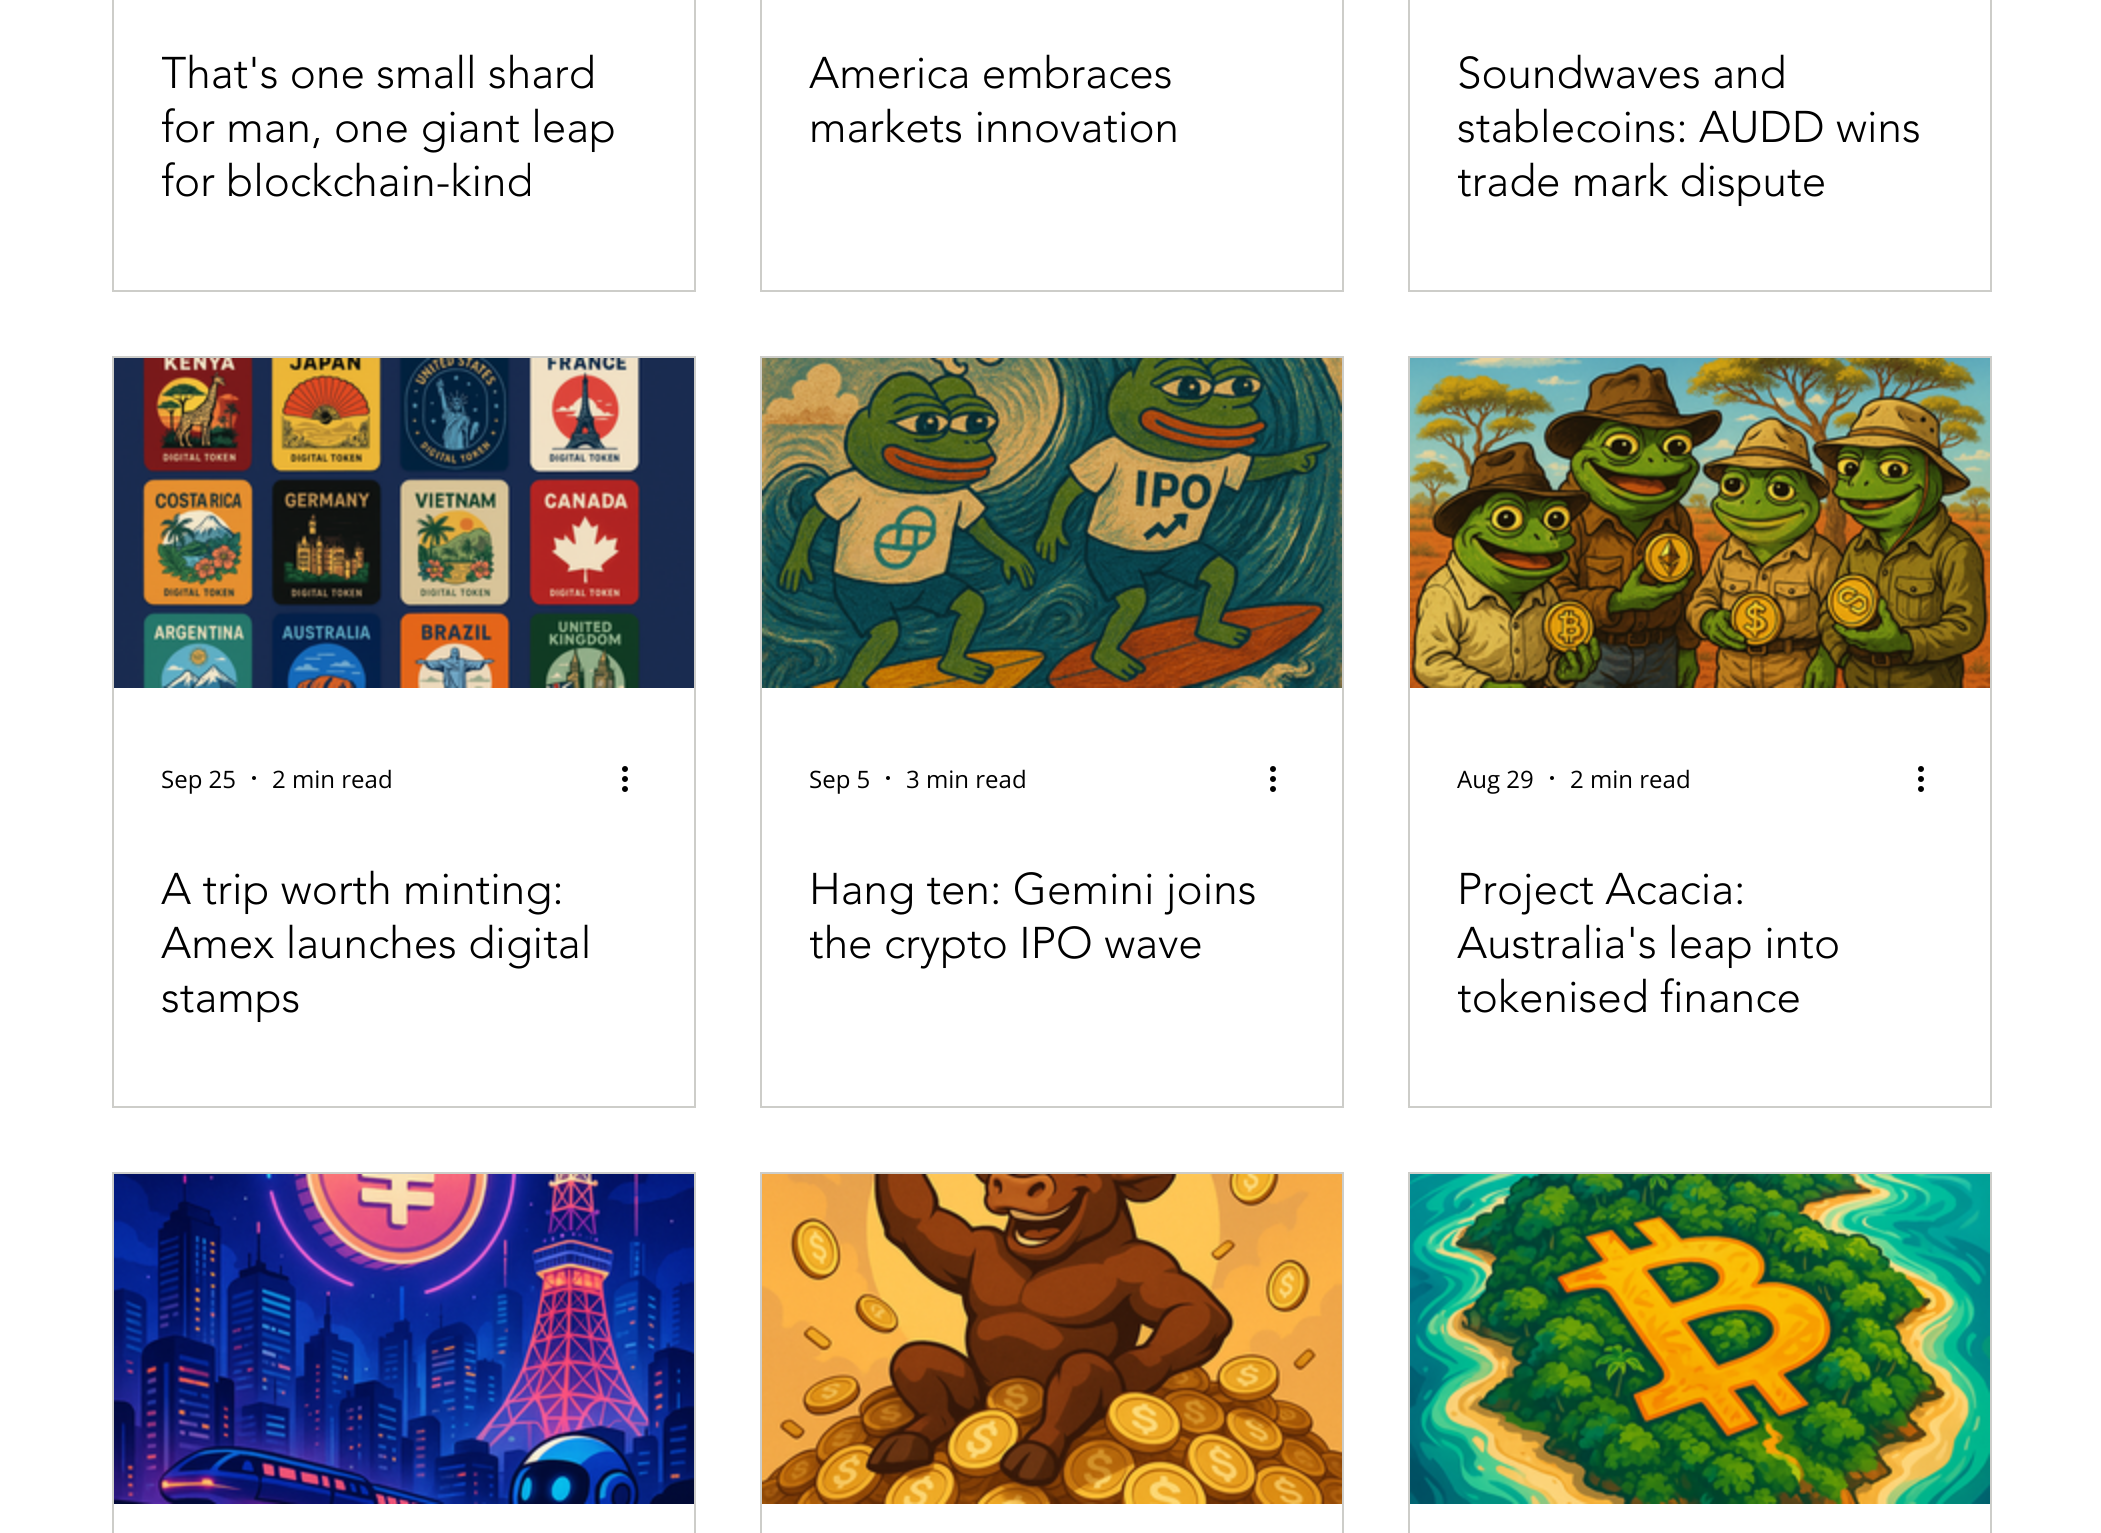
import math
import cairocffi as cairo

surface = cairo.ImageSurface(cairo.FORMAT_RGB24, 2101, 1533)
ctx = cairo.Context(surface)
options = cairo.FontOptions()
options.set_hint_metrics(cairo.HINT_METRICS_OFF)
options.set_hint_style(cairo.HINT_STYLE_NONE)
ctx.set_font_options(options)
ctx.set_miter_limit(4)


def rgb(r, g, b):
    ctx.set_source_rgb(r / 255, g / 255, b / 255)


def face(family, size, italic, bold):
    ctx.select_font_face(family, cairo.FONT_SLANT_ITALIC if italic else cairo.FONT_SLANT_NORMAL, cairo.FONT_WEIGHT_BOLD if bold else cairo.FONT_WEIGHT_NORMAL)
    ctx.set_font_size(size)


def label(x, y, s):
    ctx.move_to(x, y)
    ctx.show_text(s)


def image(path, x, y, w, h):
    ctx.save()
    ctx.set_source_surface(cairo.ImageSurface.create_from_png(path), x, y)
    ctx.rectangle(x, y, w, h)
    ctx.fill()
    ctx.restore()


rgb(255, 255, 255)
ctx.paint()
ctx.rectangle(113, -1, 582, 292)
rgb(205, 205, 201)
ctx.stroke()
ctx.save()
ctx.rectangle(162, 46, 484, 162)
ctx.clip()
face('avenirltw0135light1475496 Light', 44, 0, 0)
rgb(0, 0, 0)
label(161, 88, 'That\'s one small shard')
label(161, 142, 'for man, one giant leap')
label(161, 196, 'for blockchain-kind')
ctx.restore()
ctx.rectangle(761, -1, 582, 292)
ctx.stroke()
face('avenirltw0135light1475496 Light', 44, 0, 0)
rgb(0, 0, 0)
label(809, 88, 'America embraces')
label(809, 142, 'markets innovation')
ctx.rectangle(1409, -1, 582, 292)
rgb(205, 205, 201)
ctx.stroke()
rgb(0, 0, 0)
label(1457, 88, 'Soundwaves and')
label(1457, 142, 'stablecoins: AUDD wins')
ctx.save()
ctx.rectangle(1458, 46, 484, 162)
ctx.clip()
label(1457, 196, 'trade mark dispute')
ctx.restore()
ctx.rectangle(113, 357, 582, 750)
rgb(205, 205, 201)
ctx.stroke()
image('image0.png', 114, 358, 580, 330)
face('Open Sans', 24, 0, 0)
rgb(0, 0, 0)
label(161, 788, 'Sep 25')
ctx.new_path()
ctx.arc(254, 778, 2, 0, 2 * math.pi)
ctx.fill()
label(272, 788, '2 min read')
image('image1.png', 622, 766, 6, 26)
face('avenirltw0135light1475496 Light', 44, 0, 0)
label(161, 904, 'A trip worth minting:')
label(161, 958, 'Amex launches digital')
label(161, 1012, 'stamps')
ctx.rectangle(761, 357, 582, 750)
rgb(205, 205, 201)
ctx.stroke()
image('image2.png', 762, 358, 580, 330)
face('Open Sans', 24, 0, 0)
rgb(0, 0, 0)
label(809, 788, 'Sep 5')
ctx.new_path()
ctx.arc(888, 778, 2, 0, 2 * math.pi)
ctx.fill()
label(906, 788, '3 min read')
image('image1.png', 1270, 766, 6, 26)
face('avenirltw0135light1475496 Light', 44, 0, 0)
label(809, 904, 'Hang ten: Gemini joins')
ctx.save()
ctx.rectangle(810, 862, 484, 108)
ctx.clip()
label(809, 958, 'the crypto IPO wave')
ctx.restore()
ctx.rectangle(1409, 357, 582, 750)
rgb(205, 205, 201)
ctx.stroke()
image('image3.png', 1410, 358, 580, 330)
face('Open Sans', 24, 0, 0)
rgb(0, 0, 0)
label(1457, 788, 'Aug 29')
ctx.new_path()
ctx.arc(1552, 778, 2, 0, 2 * math.pi)
ctx.fill()
label(1570, 788, '2 min read')
image('image1.png', 1918, 766, 6, 26)
face('avenirltw0135light1475496 Light', 44, 0, 0)
label(1457, 904, 'Project Acacia:')
label(1457, 958, 'Australia\'s leap into')
ctx.save()
ctx.rectangle(1458, 862, 484, 162)
ctx.clip()
label(1457, 1012, 'tokenised finance')
ctx.restore()
ctx.rectangle(113, 1173, 582, 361)
rgb(205, 205, 201)
ctx.stroke()
image('image4.png', 114, 1174, 580, 330)
ctx.rectangle(761, 1173, 582, 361)
ctx.stroke()
image('image5.png', 762, 1174, 580, 330)
ctx.rectangle(1409, 1173, 582, 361)
ctx.stroke()
image('image6.png', 1410, 1174, 580, 330)
surface.write_to_png('render.png')
